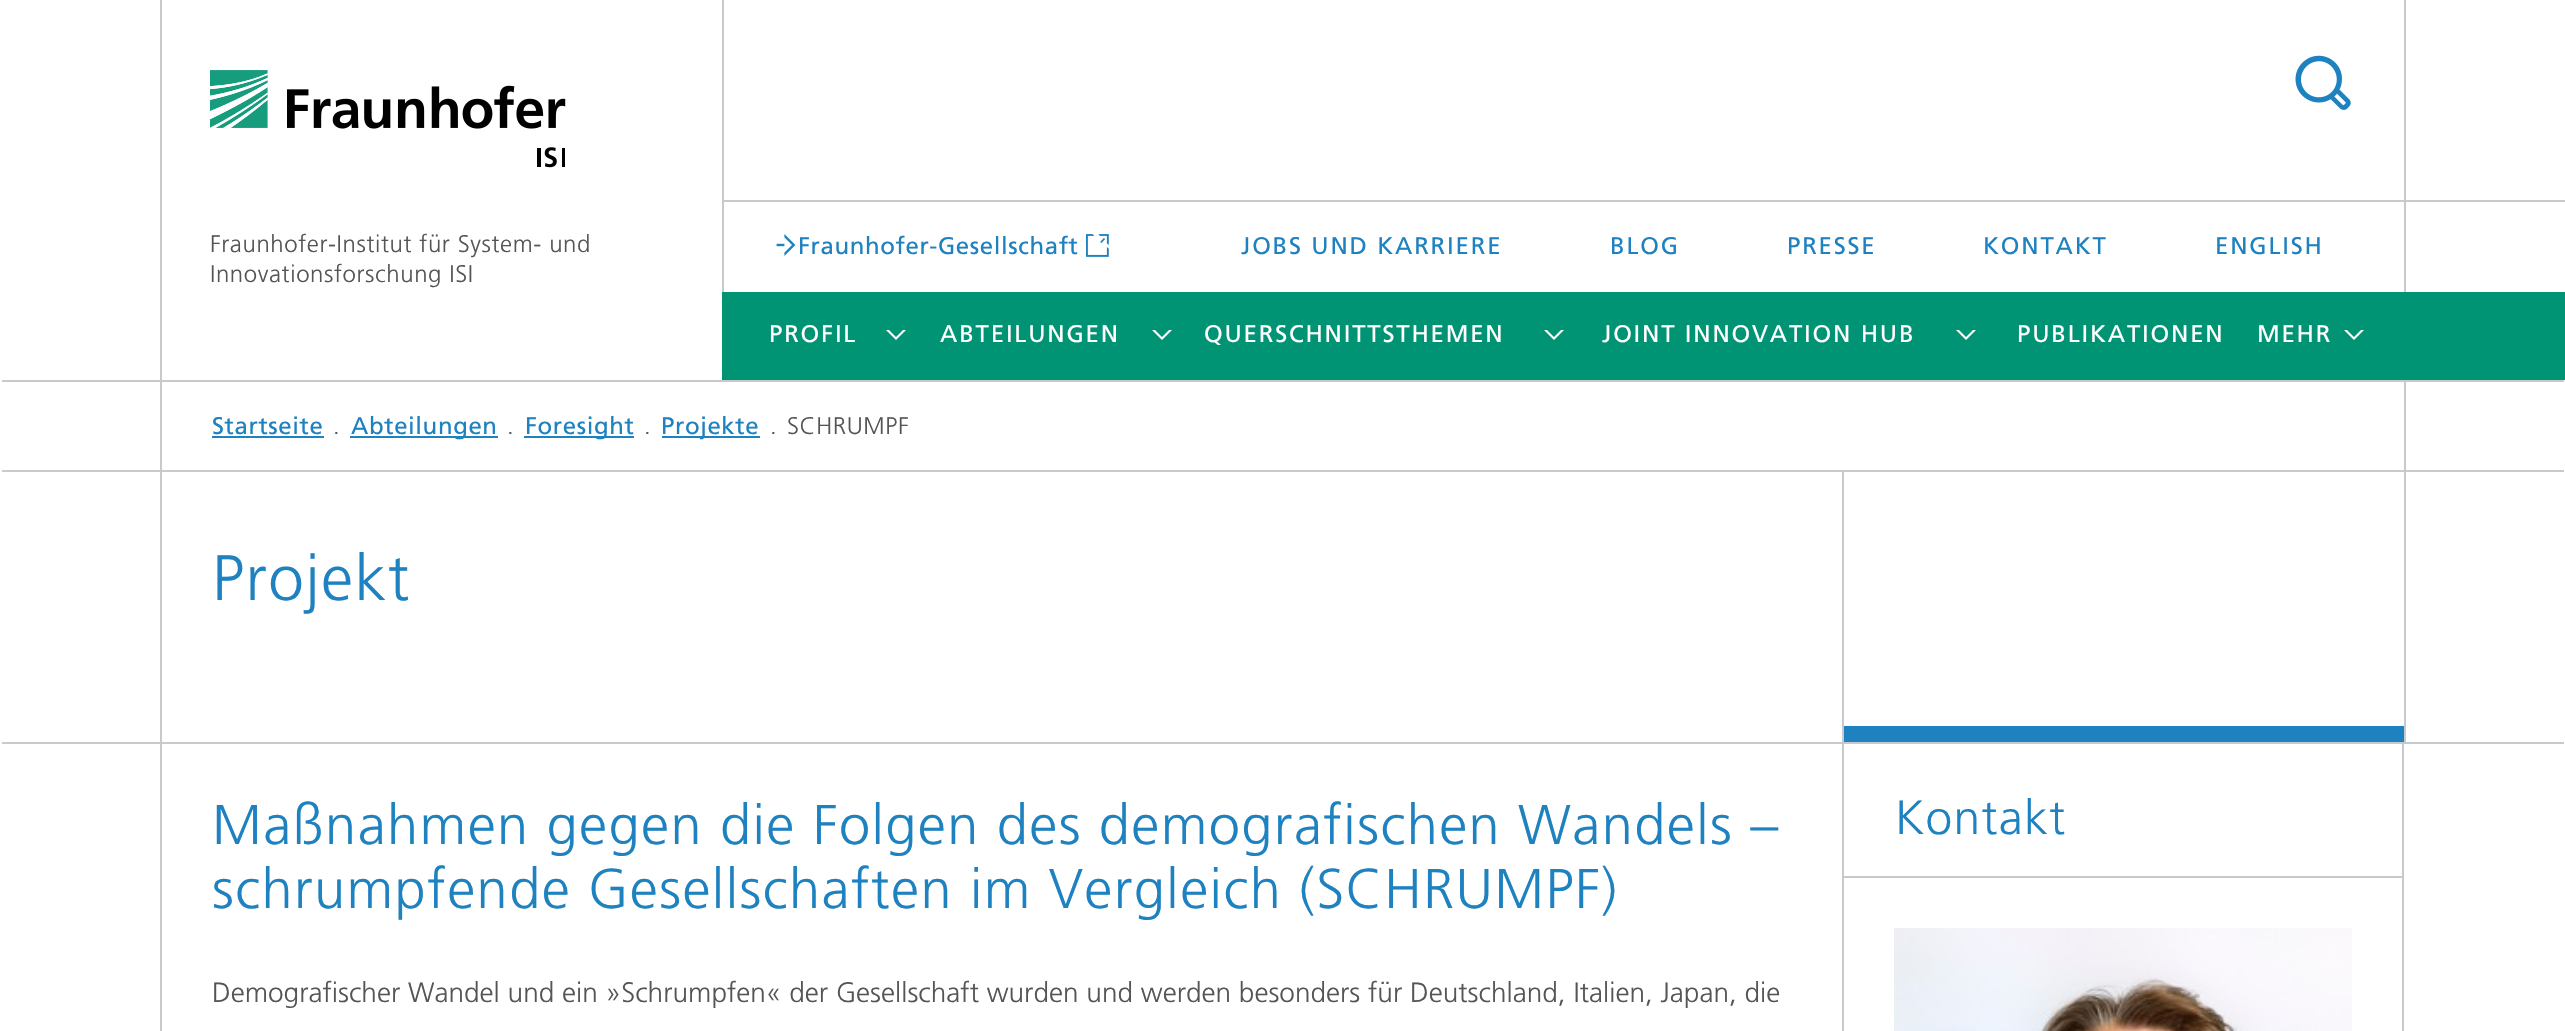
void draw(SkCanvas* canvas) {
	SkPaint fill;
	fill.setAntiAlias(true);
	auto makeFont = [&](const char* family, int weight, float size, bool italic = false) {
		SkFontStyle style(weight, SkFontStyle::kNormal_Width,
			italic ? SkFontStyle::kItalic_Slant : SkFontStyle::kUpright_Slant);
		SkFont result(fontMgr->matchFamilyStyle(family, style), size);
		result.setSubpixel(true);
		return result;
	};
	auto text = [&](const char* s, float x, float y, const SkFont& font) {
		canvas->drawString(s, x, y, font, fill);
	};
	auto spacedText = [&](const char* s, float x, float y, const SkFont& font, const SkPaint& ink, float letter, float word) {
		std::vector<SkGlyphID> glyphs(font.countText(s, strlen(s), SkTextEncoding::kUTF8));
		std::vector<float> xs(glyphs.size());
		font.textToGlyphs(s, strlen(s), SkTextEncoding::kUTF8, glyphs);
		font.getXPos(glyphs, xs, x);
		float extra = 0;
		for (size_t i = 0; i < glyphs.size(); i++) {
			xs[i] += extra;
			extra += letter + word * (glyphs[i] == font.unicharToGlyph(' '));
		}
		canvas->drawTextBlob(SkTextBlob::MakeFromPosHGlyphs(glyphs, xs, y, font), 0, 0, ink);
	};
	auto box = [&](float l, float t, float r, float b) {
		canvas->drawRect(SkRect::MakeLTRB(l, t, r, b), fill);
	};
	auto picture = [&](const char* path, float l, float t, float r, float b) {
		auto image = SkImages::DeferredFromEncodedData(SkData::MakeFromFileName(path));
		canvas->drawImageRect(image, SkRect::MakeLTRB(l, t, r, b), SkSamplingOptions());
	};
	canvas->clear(0xFFFFFFFF);
	picture("image0.png", 210, 70, 566, 168);
	picture("image1.png", 2295, 55, 2351, 110);
	fill.setColor(0xFFC7CACC);
	box(722, 200, 2565, 202);
	box(2404, 0, 2406, 292);
	box(722, 0, 724, 292);
	picture("image2.png", 776, 234, 796, 256);
	picture("image3.png", 1086, 234, 1109, 257);
	fill.setColor(0xFF009374);
	box(722, 292, 2565, 380);
	fill.setColor(0xFFFFFFFF);
	canvas->drawPath(SkPathBuilder().moveTo(903, 330).lineTo(896, 337).lineTo(889, 330).lineTo(886, 330).lineTo(896, 340).lineTo(906, 330).close().detach(), fill);
	canvas->drawPath(SkPathBuilder().moveTo(1169, 330).lineTo(1162, 337).lineTo(1155, 330).lineTo(1152, 330).lineTo(1162, 340).lineTo(1172, 330).close().detach(), fill);
	canvas->drawPath(SkPathBuilder().moveTo(1561, 330).lineTo(1554, 337).lineTo(1547, 330).lineTo(1544, 330).lineTo(1554, 340).lineTo(1564, 330).close().detach(), fill);
	canvas->drawPath(SkPathBuilder().moveTo(1973, 330).lineTo(1966, 337).lineTo(1959, 330).lineTo(1956, 330).lineTo(1966, 340).lineTo(1976, 330).close().detach(), fill);
	canvas->drawPath(SkPathBuilder().moveTo(2361, 330).lineTo(2354, 337).lineTo(2347, 330).lineTo(2344, 330).lineTo(2354, 340).lineTo(2364, 330).close().detach(), fill);
	fill.setColor(0xFFC7CACC);
	box(160, 0, 162, 1031);
	box(2, 380, 162, 382);
	box(160, 380, 2564, 382);
	box(2, 470, 162, 472);
	box(160, 470, 2564, 472);
	box(2404, 380, 2406, 742);
	fill.setColor(0xFF1F82C0);
	box(212, 436, 324, 438);
	box(350, 436, 498, 438);
	box(524, 436, 634, 438);
	box(662, 436, 760, 438);
	box(1844, 726, 2404, 742);
	fill.setColor(0xFFC7CACC);
	box(2, 742, 1844, 744);
	box(1844, 742, 2564, 744);
	box(1842, 472, 1844, 1031);
	box(2402, 742, 2404, 1031);
	box(1844, 876, 2402, 878);
	picture("image4.png", 1894, 928, 2352, 1031);
	auto font1 = makeFont("Frutiger", 300, 24);
	fill.setColor(0xFF555555);
	spacedText("Fraunhofer-Institut für System- und", 210, 252, font1, fill, 0.6f, 0);
	spacedText("Innovationsforschung ISI", 210, 282, font1, fill, 0.6f, 0);
	auto font2 = makeFont("Frutiger", 400, 24);
	fill.setColor(0xFF1F82C0);
	spacedText("Fraunhofer-Gesellschaft", 798, 254, font2, fill, 0.6f, 0);
	spacedText("JOBS UND KARRIERE", 1241, 254, font2, fill, 1.8f, 0);
	spacedText("BLOG", 1610, 254, font2, fill, 1.8f, 0);
	spacedText("PRESSE", 1787, 254, font2, fill, 1.8f, 0);
	spacedText("KONTAKT", 1983, 254, font2, fill, 1.8f, 0);
	spacedText("ENGLISH", 2215, 254, font2, fill, 1.8f, 0);
	fill.setColor(0xFFFFFFFF);
	spacedText("PROFIL", 769, 342, font2, fill, 1.8f, 0);
	spacedText("ABTEILUNGEN", 940, 342, font2, fill, 1.8f, 0);
	spacedText("QUERSCHNITTSTHEMEN", 1204, 342, font2, fill, 1.8f, 0);
	spacedText("JOINT INNOVATION HUB", 1602, 342, font2, fill, 1.8f, 0);
	spacedText("PUBLIKATIONEN", 2017, 342, font2, fill, 1.8f, 0);
	spacedText("MEHR", 2257, 342, font2, fill, 1.8f, 0);
	fill.setColor(0xFF1F82C0);
	spacedText("Startseite", 212, 434, font2, fill, 0.6f, 0);
	fill.setColor(0xFF555555);
	spacedText(".", 333, 434, font1, fill, 0.6f, 0);
	fill.setColor(0xFF1F82C0);
	spacedText("Abteilungen", 351, 434, font2, fill, 0.6f, 0);
	fill.setColor(0xFF555555);
	spacedText(".", 507, 434, font1, fill, 0.6f, 0);
	fill.setColor(0xFF1F82C0);
	spacedText("Foresight", 525, 434, font2, fill, 0.6f, 0);
	fill.setColor(0xFF555555);
	spacedText(".", 644, 434, font1, fill, 0.6f, 0);
	fill.setColor(0xFF1F82C0);
	spacedText("Projekte", 661, 434, font2, fill, 0.6f, 0);
	fill.setColor(0xFF555555);
	spacedText(".", 770, 434, font1, fill, 0.6f, 0);
	spacedText("SCHRUMPF", 787, 434, font1, fill, 0.6f, 0);
	auto font3 = makeFont("Frutiger", 300, 64);
	fill.setColor(0xFF1F82C0);
	spacedText("Projekt", 212, 600, font3, fill, 1.5f, 0);
	auto font4 = makeFont("Frutiger", 300, 56);
	spacedText("Maßnahmen gegen die Folgen des demografischen Wandels –", 212, 844, font4, fill, 1.4f, 0);
	spacedText("schrumpfende Gesellschaften im Vergleich (SCHRUMPF)", 212, 908, font4, fill, 1.4f, 0);
	auto font5 = makeFont("Frutiger", 300, 28);
	fill.setColor(0xFF555555);
	text("Demografischer Wandel und ein »Schrumpfen« der Gesellschaft wurden und werden besonders für Deutschland, Italien, Japan, die", 212, 1002, font5);
	auto font6 = makeFont("Frutiger", 300, 48);
	fill.setColor(0xFF1F82C0);
	spacedText("Kontakt", 1895, 834, font6, fill, 1.25f, 0);
}
